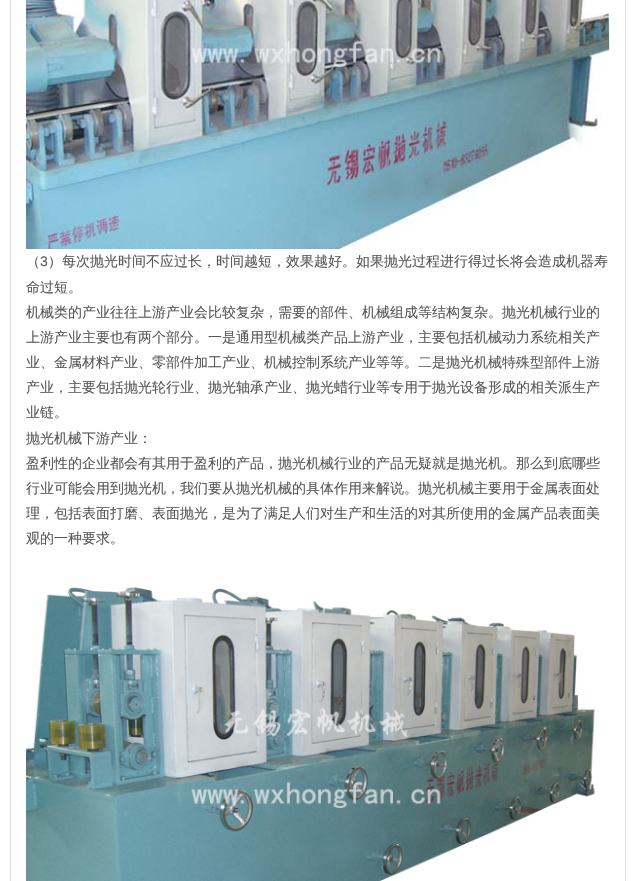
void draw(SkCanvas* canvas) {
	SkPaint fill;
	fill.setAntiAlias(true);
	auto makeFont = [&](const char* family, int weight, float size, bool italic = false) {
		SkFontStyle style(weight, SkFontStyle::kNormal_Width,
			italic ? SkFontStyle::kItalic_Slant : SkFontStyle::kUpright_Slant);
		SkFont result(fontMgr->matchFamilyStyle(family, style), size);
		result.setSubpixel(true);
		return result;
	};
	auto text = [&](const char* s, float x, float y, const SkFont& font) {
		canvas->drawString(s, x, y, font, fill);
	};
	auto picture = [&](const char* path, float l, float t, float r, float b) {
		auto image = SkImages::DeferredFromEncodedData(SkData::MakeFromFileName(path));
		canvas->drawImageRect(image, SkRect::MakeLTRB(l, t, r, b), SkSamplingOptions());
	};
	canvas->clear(0xFFFFFFFF);
	fill.setStyle(SkPaint::kStroke_Style);
	fill.setStrokeWidth(1);
	fill.setColor(0xFFDDDDDD);
	canvas->drawRect(SkRect::MakeLTRB(10.5f, -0.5f, 625.5f, 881.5f), fill);
	picture("image0.png", 26, 0, 610, 249);
	picture("image1.png", 26, 587, 595, 881);
	auto font1 = makeFont("WenQuanYi Zen Hei", 500, 14);
	fill.setStyle(SkPaint::kFill_Style);
	fill.setColor(0xFF595757);
	text("（", 26, 266, font1);
	auto font2 = makeFont("Liberation Sans", 400, 14);
	text("3", 40, 266, font2);
	text("）每次抛光时间不应过长，时间越短，效果越好。如果抛光过程进行得过长将会造成机器寿", 48, 266, font1);
	text("命过短。", 26, 292, font1);
	text("机械类的产业往往上游产业会比较复杂，需要的部件、机械组成等结构复杂。抛光机械行业的", 26, 317, font1);
	text("上游产业主要也有两个部分。一是通用型机械类产品上游产业，主要包括机械动力系统相关产", 26, 342, font1);
	text("业、金属材料产业、零部件加工产业、机械控制系统产业等等。二是抛光机械特殊型部件上游", 26, 367, font1);
	text("产业，主要包括抛光轮行业、抛光轴承产业、抛光蜡行业等专用于抛光设备形成的相关派生产", 26, 392, font1);
	text("业链。", 26, 417, font1);
	text("抛光机械下游产业：", 26, 443, font1);
	text("盈利性的企业都会有其用于盈利的产品，抛光机械行业的产品无疑就是抛光机。那么到底哪些", 26, 468, font1);
	text("行业可能会用到抛光机，我们要从抛光机械的具体作用来解说。抛光机械主要用于金属表面处", 26, 493, font1);
	text("理，包括表面打磨、表面抛光，是为了满足人们对生产和生活的对其所使用的金属产品表面美", 26, 518, font1);
	text("观的一种要求。", 26, 543, font1);
}
